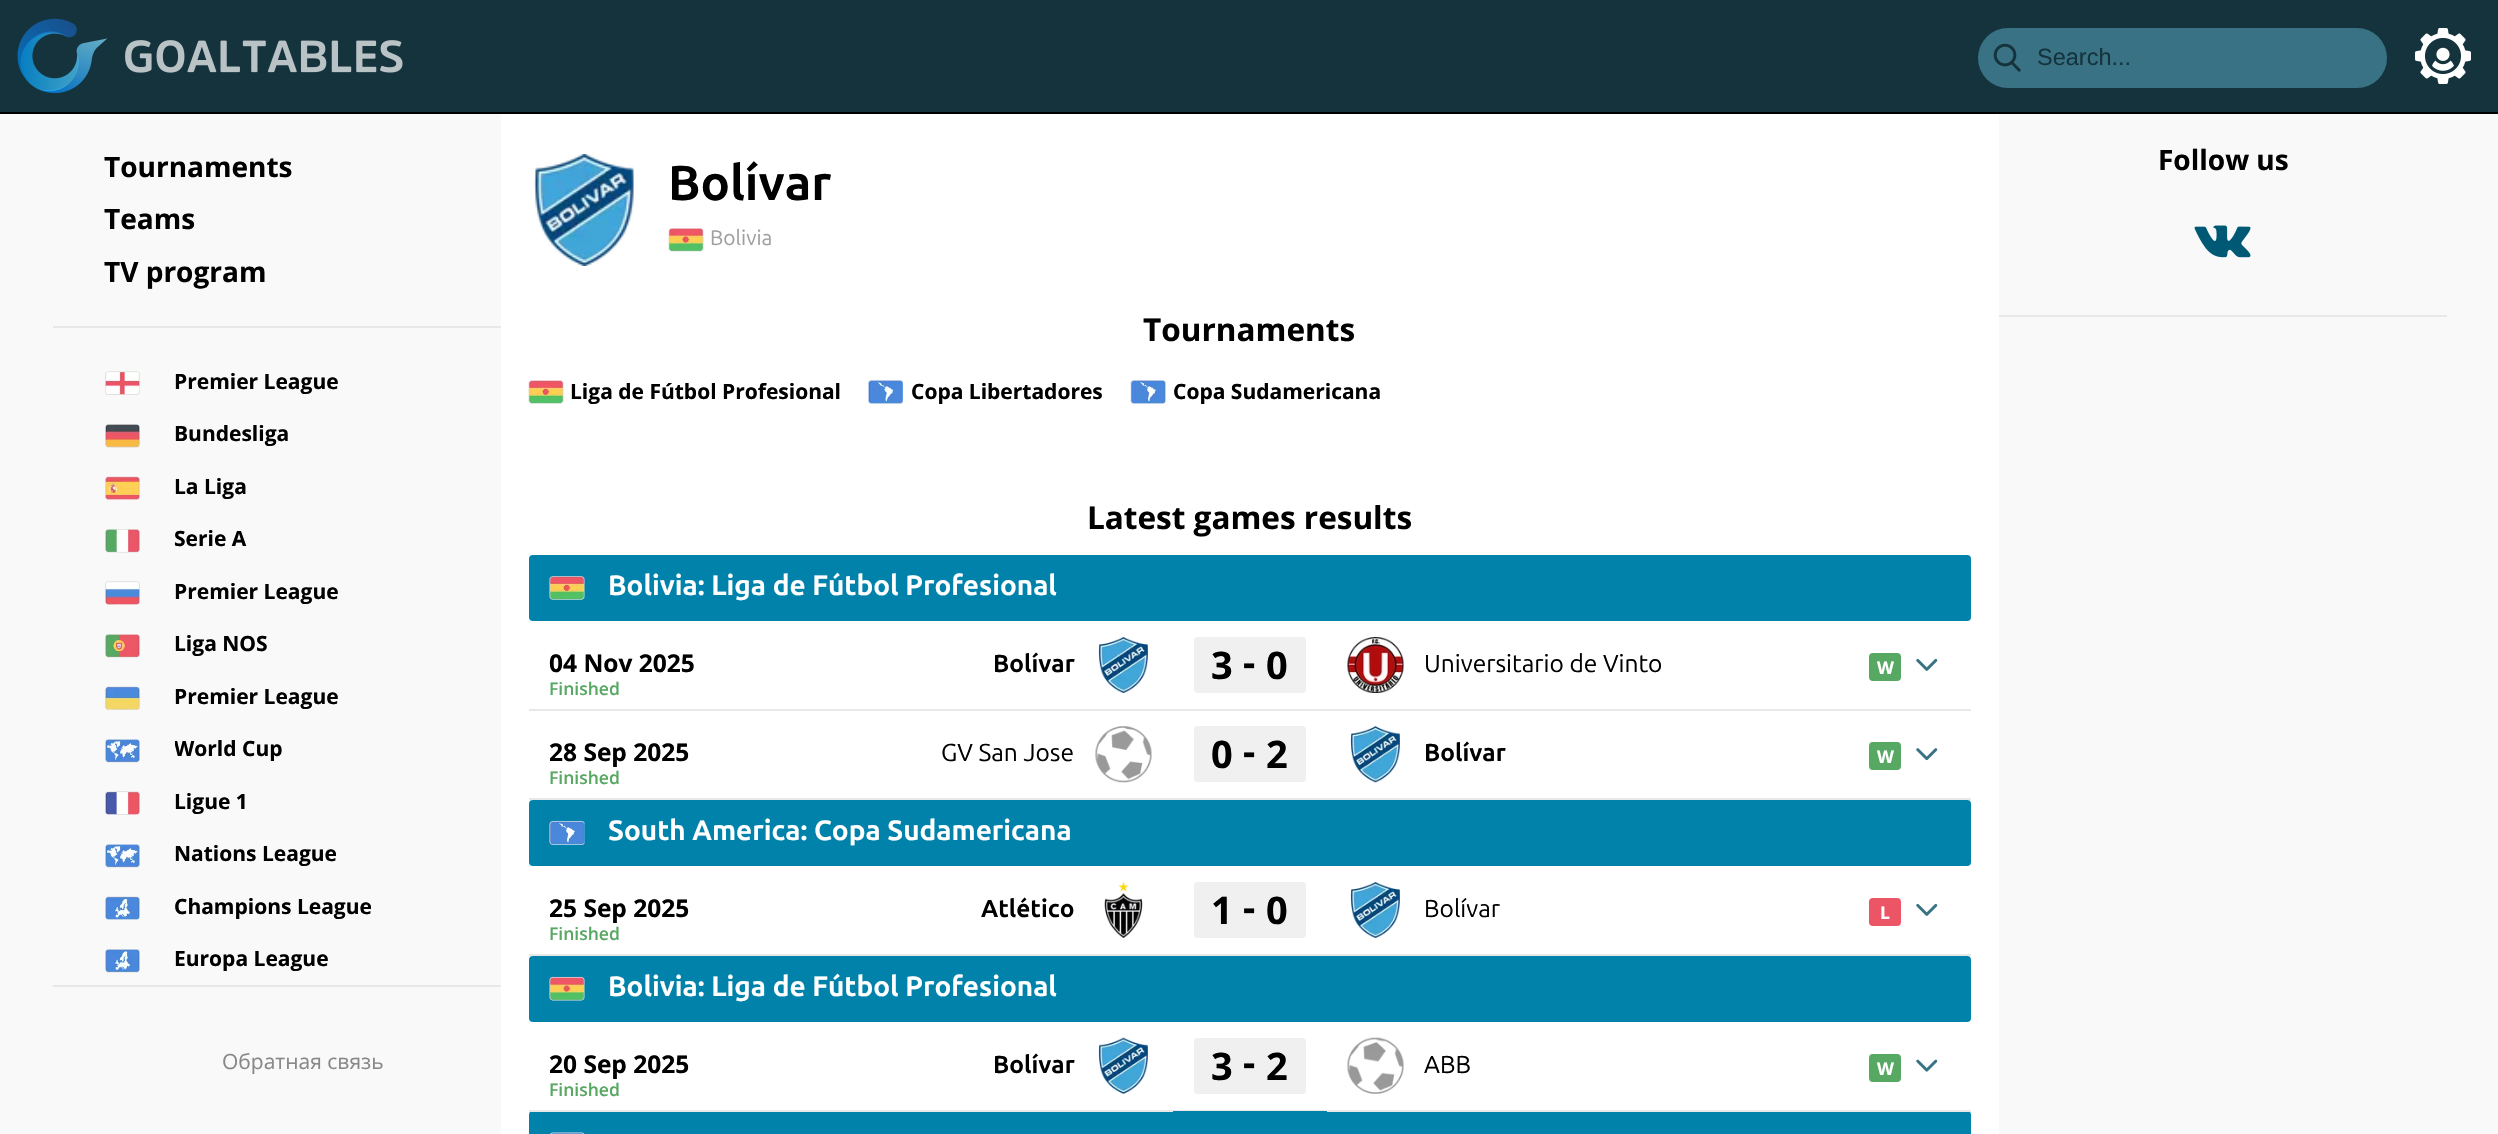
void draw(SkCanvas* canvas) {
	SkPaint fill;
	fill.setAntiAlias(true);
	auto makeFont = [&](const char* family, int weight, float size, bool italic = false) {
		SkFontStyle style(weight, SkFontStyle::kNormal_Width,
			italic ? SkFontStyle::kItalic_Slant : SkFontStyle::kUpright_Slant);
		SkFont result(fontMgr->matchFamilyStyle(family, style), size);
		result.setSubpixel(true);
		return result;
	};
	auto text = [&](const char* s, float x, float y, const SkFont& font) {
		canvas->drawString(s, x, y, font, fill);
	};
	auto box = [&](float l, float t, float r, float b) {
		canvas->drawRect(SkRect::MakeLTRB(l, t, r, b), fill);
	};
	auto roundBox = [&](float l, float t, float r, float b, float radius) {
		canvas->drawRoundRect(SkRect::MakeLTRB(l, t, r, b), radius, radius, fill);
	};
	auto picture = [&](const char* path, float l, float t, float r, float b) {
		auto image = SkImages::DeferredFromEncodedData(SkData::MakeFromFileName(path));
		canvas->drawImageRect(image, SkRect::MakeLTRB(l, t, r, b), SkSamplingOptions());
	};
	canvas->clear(0xFFFFFFFF);
	fill.setColor(0xFF15333C);
	box(0, 0, 2498, 112);
	fill.setColor(0xFF000000);
	box(0, 112, 2498, 114);
	picture("image0.png", 17, 18, 403, 94);
	fill.setColor(0xFF387284);
	roundBox(1978, 28, 2387, 88, 30);
	picture("image1.png", 1993, 43, 2021, 72);
	picture("image2.png", 2415, 28, 2471, 84);
	fill.setColor(0xFFF9F9F9);
	box(0, 114, 501, 1134);
	fill.setColor(0xFFE8E8E8);
	box(53, 326, 501, 328);
	picture("image3.png", 105, 371, 140, 395);
	picture("image4.png", 105, 424, 140, 448);
	picture("image5.png", 105, 476, 140, 500);
	picture("image6.png", 105, 529, 140, 553);
	picture("image7.png", 105, 581, 140, 605);
	picture("image8.png", 105, 634, 140, 658);
	picture("image9.png", 105, 686, 140, 710);
	picture("image10.png", 105, 739, 140, 763);
	picture("image11.png", 105, 791, 140, 815);
	picture("image10.png", 105, 844, 140, 868);
	picture("image12.png", 105, 896, 140, 920);
	picture("image13.png", 105, 949, 140, 973);
	box(53, 985, 501, 987);
	picture("image14.png", 534, 154, 634, 266);
	picture("image15.png", 668, 228, 704, 252);
	picture("image16.png", 528, 380, 564, 404);
	picture("image17.png", 868, 379, 903, 404);
	picture("image18.png", 1130, 379, 1166, 404);
	fill.setColor(0xFF0082AB);
	roundBox(529, 555, 1971, 621, 4);
	picture("image19.png", 549, 576, 585, 600);
	picture("image20.png", 1098, 637, 1148, 693);
	fill.setColor(0xFFE8E8E8);
	box(529, 709, 1971, 711);
	fill.setColor(0xFFF0F0F0);
	roundBox(1194, 637, 1306, 693, 4);
	picture("image21.png", 1347, 637, 1404, 693);
	fill.setColor(0xFF57A863);
	roundBox(1869, 653, 1901, 681, 4);
	picture("image22.png", 1916, 658, 1938, 671);
	picture("image23.png", 1095, 726, 1152, 783);
	fill.setColor(0xFFE8E8E8);
	box(529, 798, 1971, 800);
	fill.setColor(0xFFF0F0F0);
	roundBox(1194, 726, 1306, 782, 4);
	picture("image24.png", 1350, 726, 1400, 783);
	fill.setColor(0xFF57A863);
	roundBox(1869, 742, 1901, 770, 4);
	picture("image25.png", 1916, 748, 1938, 761);
	fill.setColor(0xFF0082AB);
	roundBox(529, 800, 1971, 866, 4);
	picture("image26.png", 549, 820, 585, 845);
	picture("image27.png", 1104, 882, 1143, 938);
	fill.setColor(0xFFE8E8E8);
	box(529, 954, 1971, 956);
	fill.setColor(0xFFF0F0F0);
	roundBox(1194, 882, 1306, 938, 4);
	picture("image28.png", 1350, 882, 1400, 938);
	fill.setColor(0xFFEC5565);
	roundBox(1869, 898, 1901, 926, 4);
	picture("image22.png", 1916, 903, 1938, 916);
	fill.setColor(0xFF0082AB);
	roundBox(529, 956, 1971, 1022, 4);
	picture("image29.png", 549, 976, 585, 1001);
	roundBox(529, 1111, 1971, 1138, 4);
	fill.setColor(0xFFE8E8E8);
	box(529, 1110, 1173, 1112);
	picture("image30.png", 1098, 1037, 1148, 1094);
	box(1173, 1110, 1327, 1111);
	fill.setColor(0xFFF0F0F0);
	roundBox(1194, 1038, 1306, 1094, 4);
	fill.setColor(0xFFE8E8E8);
	box(1327, 1110, 1971, 1112);
	picture("image31.png", 1347, 1037, 1404, 1094);
	fill.setColor(0xFF57A863);
	roundBox(1869, 1054, 1901, 1082, 4);
	picture("image32.png", 1916, 1059, 1938, 1072);
	picture("image33.png", 550, 1132, 585, 1134);
	fill.setColor(0xFFF9F9F9);
	box(1999, 114, 2498, 1134);
	fill.setColor(0xFFE8E8E8);
	box(1999, 315, 2447, 317);
	picture("image34.png", 2194, 225, 2251, 258);
	auto font1 = makeFont("Liberation Sans", 400, 23.5f);
	fill.setColor(0xFF15333C);
	text("Search...", 2037, 65, font1);
	auto font2 = makeFont("Open Sans", 700, 28);
	fill.setColor(0xFF000000);
	text("Tournaments", 104, 177, font2);
	text("Teams", 104, 229, font2);
	text("TV program", 104, 282, font2);
	auto font3 = makeFont("Open Sans", 700, 21);
	text("Premier League", 174, 389, font3);
	text("Bundesliga", 174, 441, font3);
	text("La Liga", 174, 494, font3);
	text("Serie A", 174, 546, font3);
	text("Premier League", 174, 599, font3);
	text("Liga NOS", 174, 651, font3);
	text("Premier League", 174, 704, font3);
	canvas->save();
	canvas->clipRect(SkRect::MakeLTRB(175, 723, 413, 775));
	text("World Cup", 174, 756, font3);
	canvas->restore();
	text("Ligue 1", 174, 809, font3);
	text("Nations League", 174, 861, font3);
	text("Champions League", 174, 914, font3);
	text("Europa League", 174, 966, font3);
	auto font4 = makeFont("Open Sans", 400, 21);
	fill.setColor(0xFF888888);
	text("Обратная связь", 222, 1069, font4);
	auto font5 = makeFont("Ubuntu", 700, 49);
	fill.setColor(0xFF000000);
	text("Bolívar", 668, 200, font5);
	auto font6 = makeFont("Ubuntu", 400, 21);
	fill.setColor(0xFFA0A0A0);
	text("Bolivia", 710, 245, font6);
	auto font7 = makeFont("Open Sans", 700, 31.5f);
	fill.setColor(0xFF000000);
	text("Tournaments", 1143, 341, font7);
	text("Liga de Fútbol Profesional", 570, 399, font3);
	text("Copa Libertadores", 911, 399, font3);
	text("Copa Sudamericana", 1173, 399, font3);
	text("Latest games results", 1087, 529, font7);
	auto font8 = makeFont("Ubuntu", 700, 28);
	fill.setColor(0xFFFFFFFF);
	text("Bolivia: Liga de Fútbol Profesional", 608, 595, font8);
	auto font9 = makeFont("Open Sans", 700, 24.5f);
	fill.setColor(0xFF000000);
	text("04 Nov 2025", 549, 672, font9);
	auto font10 = makeFont("Open Sans", 600, 17.5f);
	fill.setColor(0xFF57A863);
	text("Finished", 549, 695, font10);
	auto font11 = makeFont("Ubuntu", 700, 24.5f);
	fill.setColor(0xFF000000);
	text("Bolívar", 993, 672, font11);
	auto font12 = makeFont("Open Sans", 700, 38);
	text("3", 1211, 679, font12);
	text("-", 1243, 676, font12);
	text("0", 1266, 679, font12);
	auto font13 = makeFont("Ubuntu", 400, 24.5f);
	text("Universitario de Vinto", 1424, 672, font13);
	auto font14 = makeFont("Open Sans", 700, 17.5f);
	fill.setColor(0xFFFFFFFF);
	text("W", 1877, 674, font14);
	fill.setColor(0xFF000000);
	text("28 Sep 2025", 549, 761, font9);
	fill.setColor(0xFF57A863);
	text("Finished", 549, 784, font10);
	fill.setColor(0xFF000000);
	text("GV San Jose", 941, 761, font13);
	text("0", 1211, 768, font12);
	text("-", 1243, 765, font12);
	text("2", 1266, 768, font12);
	text("Bolívar", 1424, 761, font11);
	fill.setColor(0xFFFFFFFF);
	text("W", 1877, 763, font14);
	text("South America: Copa Sudamericana", 608, 840, font8);
	fill.setColor(0xFF000000);
	text("25 Sep 2025", 549, 917, font9);
	fill.setColor(0xFF57A863);
	text("Finished", 549, 940, font10);
	fill.setColor(0xFF000000);
	text("Atlético", 981, 917, font11);
	text("1", 1211, 924, font12);
	text("-", 1243, 921, font12);
	text("0", 1266, 924, font12);
	text("Bolívar", 1424, 917, font13);
	fill.setColor(0xFFFFFFFF);
	text("L", 1880, 919, font14);
	text("Bolivia: Liga de Fútbol Profesional", 608, 996, font8);
	fill.setColor(0xFF000000);
	text("20 Sep 2025", 549, 1073, font9);
	fill.setColor(0xFF57A863);
	text("Finished", 549, 1096, font10);
	fill.setColor(0xFF000000);
	text("Bolívar", 993, 1073, font11);
	text("3", 1211, 1080, font12);
	text("-", 1243, 1076, font12);
	text("2", 1266, 1080, font12);
	text("ABB", 1424, 1073, font13);
	fill.setColor(0xFFFFFFFF);
	text("W", 1877, 1075, font14);
	fill.setColor(0xFF000000);
	text("Follow us", 2158, 170, font2);
}
